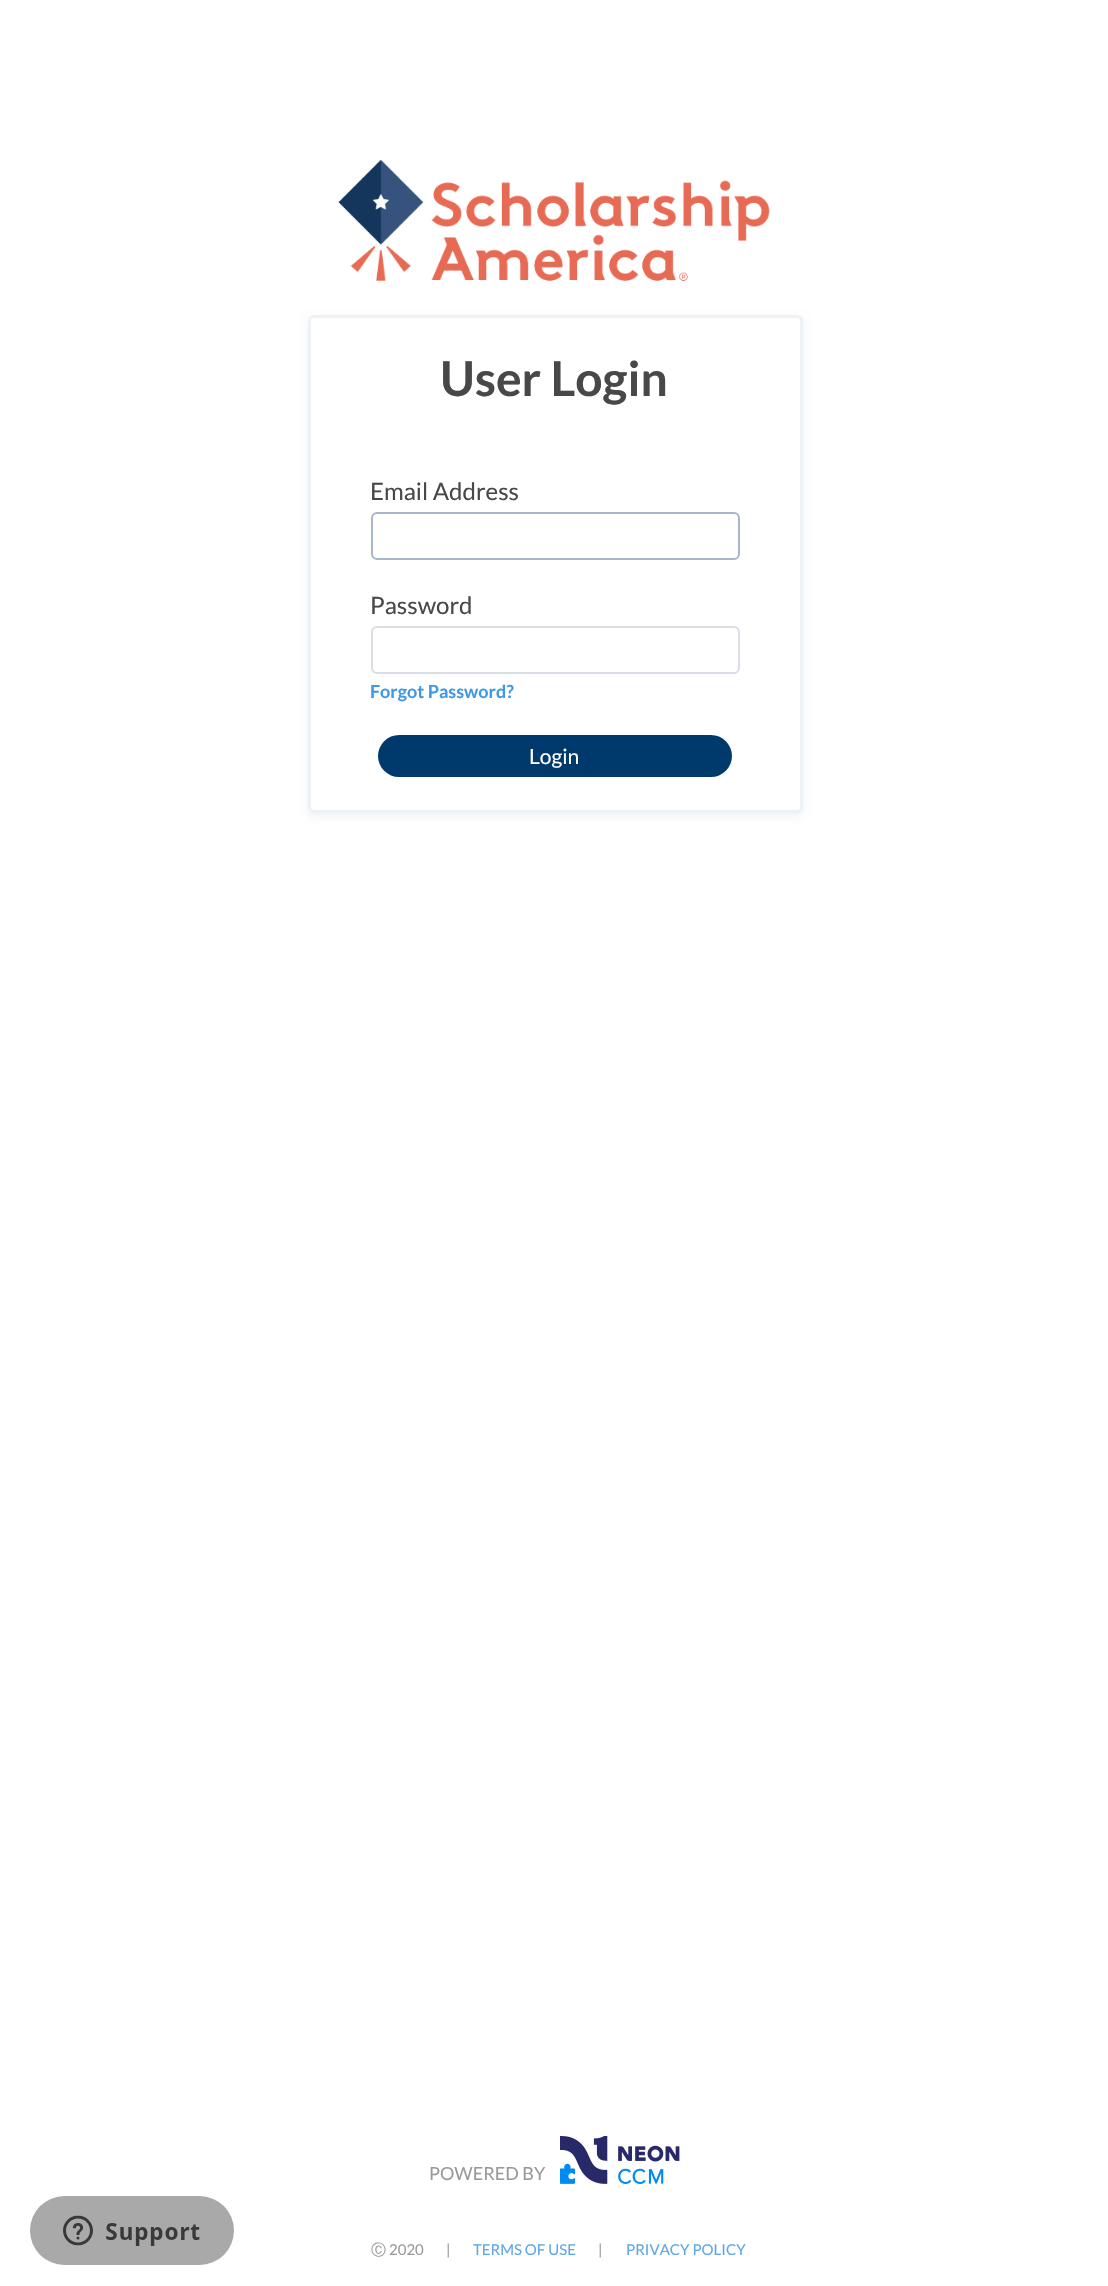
void draw(SkCanvas* canvas) {
	SkPaint fill;
	fill.setAntiAlias(true);
	auto makeFont = [&](const char* family, int weight, float size, bool italic = false) {
		SkFontStyle style(weight, SkFontStyle::kNormal_Width,
			italic ? SkFontStyle::kItalic_Slant : SkFontStyle::kUpright_Slant);
		SkFont result(fontMgr->matchFamilyStyle(family, style), size);
		result.setSubpixel(true);
		return result;
	};
	auto text = [&](const char* s, float x, float y, const SkFont& font) {
		canvas->drawString(s, x, y, font, fill);
	};
	auto roundBox = [&](float l, float t, float r, float b, float radius) {
		canvas->drawRoundRect(SkRect::MakeLTRB(l, t, r, b), radius, radius, fill);
	};
	auto picture = [&](const char* path, float l, float t, float r, float b) {
		auto image = SkImages::DeferredFromEncodedData(SkData::MakeFromFileName(path));
		canvas->drawImageRect(image, SkRect::MakeLTRB(l, t, r, b), SkSamplingOptions());
	};
	canvas->clear(0xFFFFFFFF);
	picture("image0.png", 30, 2196, 234, 2265);
	picture("image1.png", 338, 160, 770, 281);
	fill.setColor(0xFFEEF1F6);
	fill.setMaskFilter(SkMaskFilter::MakeBlur(kNormal_SkBlurStyle, 4));
	canvas->drawRoundRect(SkRect::MakeLTRB(308, 318, 803, 816), 6, 6, fill);
	fill.setMaskFilter(nullptr);
	fill.setColor(0xFFFFFFFF);
	canvas->drawRoundRect(SkRect::MakeLTRB(309.5f, 316.5f, 801.5f, 811.5f), 4.5f, 4.5f, fill);
	fill.setStyle(SkPaint::kStroke_Style);
	fill.setStrokeWidth(3);
	fill.setColor(0xFFEEF1F6);
	canvas->drawRoundRect(SkRect::MakeLTRB(309.5f, 316.5f, 801.5f, 811.5f), 4.5f, 4.5f, fill);
	fill.setStrokeWidth(2);
	fill.setColor(0xFFA8B7C7);
	canvas->drawRoundRect(SkRect::MakeLTRB(372, 513, 739, 559), 5, 5, fill);
	fill.setColor(0xFFD8DDE6);
	canvas->drawRoundRect(SkRect::MakeLTRB(372, 627, 739, 673), 5, 5, fill);
	fill.setStyle(SkPaint::kFill_Style);
	fill.setColor(0xFF003A6C);
	roundBox(378, 735, 732, 777, 21);
	picture("image2.png", 560, 2136, 680, 2184);
	auto font1 = makeFont("Lato", 700, 48);
	fill.setColor(0xFF484848);
	text("User Login", 440, 396, font1);
	auto font2 = makeFont("Lato", 400, 24);
	text("Email Address", 370, 500, font2);
	text("Password", 370, 614, font2);
	auto font3 = makeFont("Lato", 700, 18);
	fill.setColor(0xFF4097E3);
	text("Forgot Password?", 370, 698, font3);
	auto font4 = makeFont("Lato", 400, 21);
	fill.setColor(0xFFFFFFFF);
	text("Login", 529, 764, font4);
	auto font5 = makeFont("Lato", 400, 18);
	fill.setColor(0xFF999999);
	text("POWERED BY", 429, 2180, font5);
	auto font6 = makeFont("WenQuanYi Zen Hei", 500, 15);
	text("Ⓒ", 371, 2255, font6);
	auto font7 = makeFont("Lato", 400, 15);
	text("2020", 389, 2255, font7);
	text("|", 446, 2255, font7);
	fill.setColor(0xFF5EA7E7);
	text("TERMS OF USE", 473, 2255, font7);
	fill.setColor(0xFF999999);
	text("|", 598, 2255, font7);
	fill.setColor(0xFF5EA7E7);
	text("PRIVACY POLICY", 626, 2255, font7);
}
